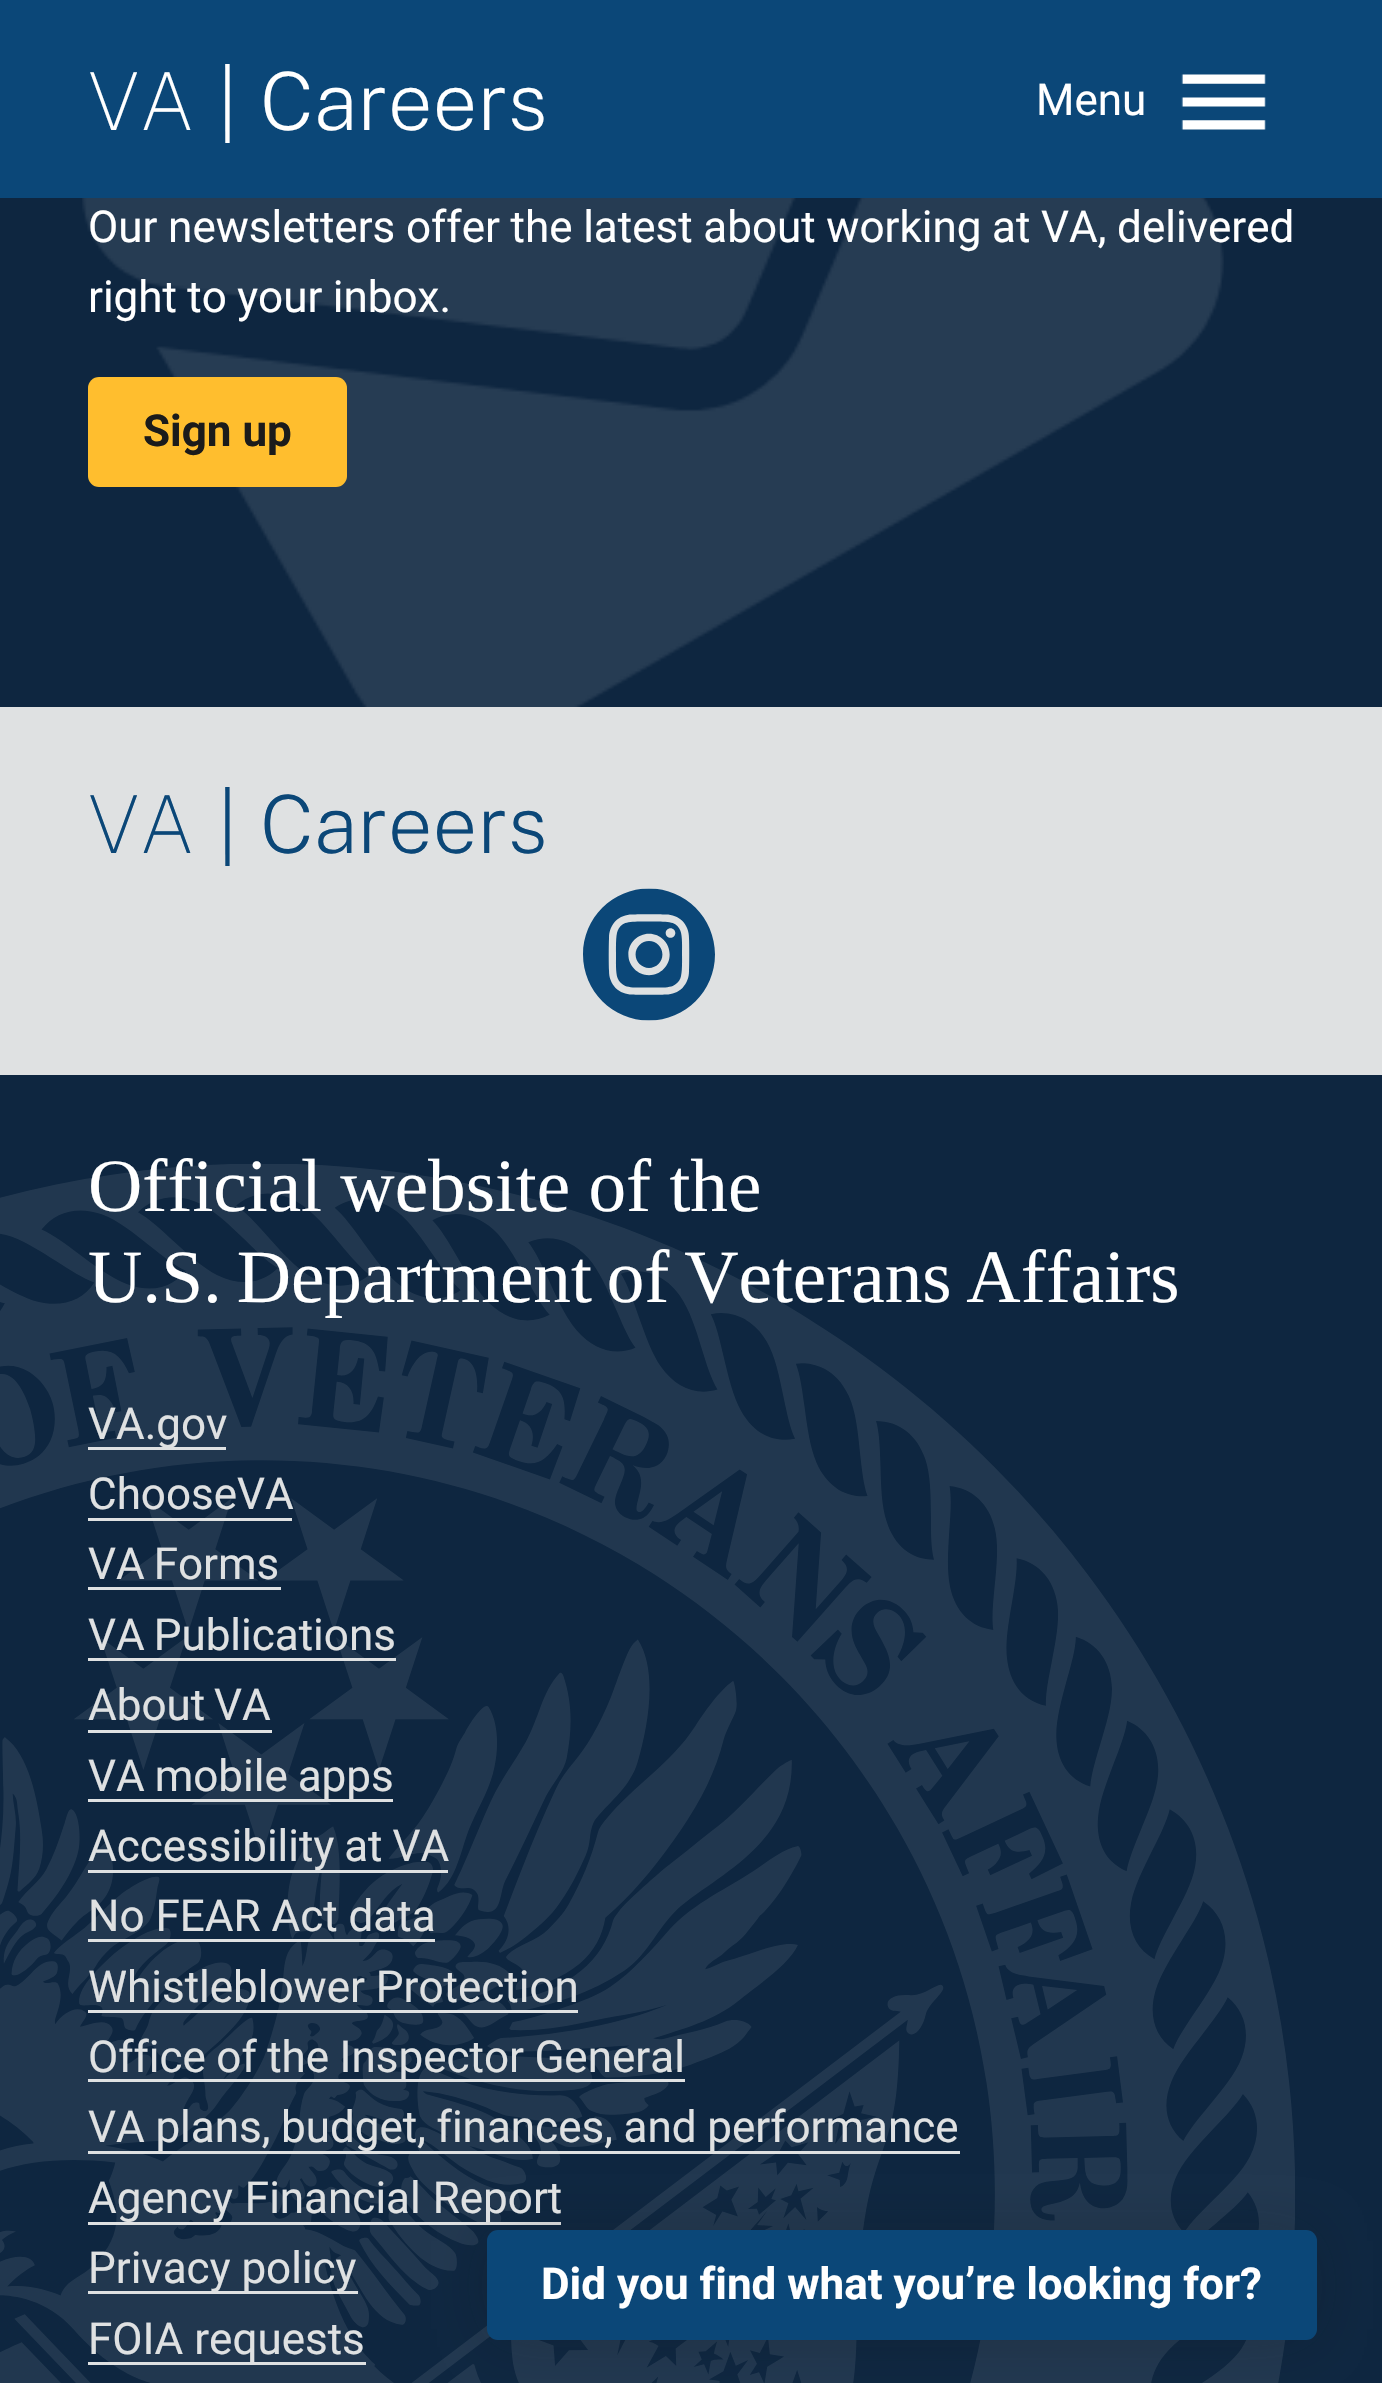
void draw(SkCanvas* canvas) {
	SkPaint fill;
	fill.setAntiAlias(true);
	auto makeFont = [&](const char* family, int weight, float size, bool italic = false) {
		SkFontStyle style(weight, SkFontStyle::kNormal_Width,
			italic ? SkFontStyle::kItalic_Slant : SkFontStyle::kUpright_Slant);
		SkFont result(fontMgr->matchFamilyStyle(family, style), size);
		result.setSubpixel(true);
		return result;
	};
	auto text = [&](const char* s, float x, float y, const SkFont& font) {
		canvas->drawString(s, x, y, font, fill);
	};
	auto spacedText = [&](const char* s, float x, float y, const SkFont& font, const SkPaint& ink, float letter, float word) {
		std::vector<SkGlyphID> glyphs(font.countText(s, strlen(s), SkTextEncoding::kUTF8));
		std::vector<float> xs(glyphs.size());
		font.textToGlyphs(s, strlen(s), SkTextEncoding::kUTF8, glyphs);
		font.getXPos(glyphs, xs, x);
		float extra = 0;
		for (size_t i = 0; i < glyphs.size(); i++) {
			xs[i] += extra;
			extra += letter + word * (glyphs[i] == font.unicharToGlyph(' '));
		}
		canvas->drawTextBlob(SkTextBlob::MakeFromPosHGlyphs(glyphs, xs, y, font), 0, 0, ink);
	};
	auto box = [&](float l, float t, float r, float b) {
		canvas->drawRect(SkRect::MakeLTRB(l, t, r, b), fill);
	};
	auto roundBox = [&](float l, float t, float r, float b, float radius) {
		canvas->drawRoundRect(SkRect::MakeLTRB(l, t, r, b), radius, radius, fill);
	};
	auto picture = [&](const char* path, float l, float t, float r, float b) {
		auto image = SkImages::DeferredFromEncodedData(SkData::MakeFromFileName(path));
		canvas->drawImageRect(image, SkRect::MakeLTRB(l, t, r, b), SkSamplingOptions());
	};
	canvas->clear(0xFFDFE1E2);
	fill.setColor(0xFF0B4778);
	box(0, 0, 1382, 198);
	picture("image0.png", 1181, 74, 1266, 130);
	fill.setColor(0xFF0E2640);
	box(0, 198, 1382, 707);
	picture("image1.png", 82, 198, 1224, 707);
	fill.setColor(0xFFFFBE2E);
	roundBox(88, 377, 347, 487, 11);
	picture("image2.png", 583, 888, 715, 1021);
	fill.setColor(0xFF0E2640);
	box(0, 1075, 1382, 2383);
	picture("image3.png", 0, 1164, 1295, 2383);
	fill.setColor(0xFFDFE1E2);
	box(88, 1447, 226, 1450);
	box(88, 1518, 292, 1521);
	box(88, 1587, 281, 1590);
	box(88, 1658, 396, 1661);
	box(88, 1730, 272, 1733);
	box(88, 1799, 393, 1802);
	box(88, 1870, 448, 1873);
	box(88, 1939, 435, 1942);
	box(88, 2010, 578, 2013);
	box(88, 2079, 685, 2082);
	box(88, 2151, 960, 2154);
	box(88, 2222, 561, 2225);
	box(88, 2291, 358, 2294);
	box(88, 2362, 366, 2365);
	fill.setColor(0x4D1B1B1B);
	fill.setMaskFilter(SkMaskFilter::MakeBlur(kNormal_SkBlurStyle, 27.5f));
	canvas->drawRect(SkRect::MakeLTRB(498, 2241, 1306, 2329), fill);
	fill.setMaskFilter(nullptr);
	fill.setColor(0xFF0B4778);
	roundBox(487, 2230, 1317, 2340, 11);
	auto font1 = makeFont("Public Sans", 100, 80);
	fill.setColor(0xFFFFFFFF);
	text("VA", 88, 130, font1);
	auto font2 = makeFont("Public Sans", 200, 80);
	text("|", 217, 130, font2);
	text("Careers", 260, 130, font2);
	auto font3 = makeFont("Roboto", 400, 44);
	text("Menu", 1036, 115, font3);
	spacedText("Our newsletters offer the latest about working at VA, delivered", 88, 242, font3, fill, 0, -0.25f);
	spacedText("right to your inbox.", 88, 312, font3, fill, 0, -0.5f);
	auto font4 = makeFont("Roboto", 700, 44);
	fill.setColor(0xFF1B1B1B);
	text("Sign up", 143, 446, font4);
	fill.setColor(0xFF0B4778);
	text("VA", 88, 853, font1);
	text("|", 217, 853, font2);
	text("Careers", 260, 853, font2);
	auto font5 = makeFont("Liberation Serif", 400, 75.25f);
	fill.setColor(0xFFFFFFFF);
	spacedText("Official website of the", 88, 1211, font5, fill, 0, -0.5f);
	spacedText("U.S. Department of Veterans Affairs", 88, 1302, font5, fill, 0, -4);
	fill.setColor(0xFFDFE1E2);
	text("VA.gov", 88, 1439, font3);
	text("ChooseVA", 88, 1509, font3);
	spacedText("VA Forms", 88, 1579, font3, fill, 0, -2);
	spacedText("VA Publications", 88, 1650, font3, fill, 0, -2);
	spacedText("About VA", 88, 1720, font3, fill, 0, -2);
	spacedText("VA mobile apps", 88, 1791, font3, fill, 0, -1);
	spacedText("Accessibility at VA", 88, 1861, font3, fill, 0, -1);
	text("No FEAR Act data", 88, 1931, font3);
	text("Whistleblower Protection", 88, 2002, font3);
	spacedText("Office of the Inspector General", 88, 2072, font3, fill, 0, -0.5f);
	spacedText("VA plans, budget, finances, and performance", 88, 2142, font3, fill, 0, -0.25f);
	spacedText("Agency Financial Report", 88, 2213, font3, fill, 0, 1);
	text("Privacy policy", 88, 2283, font3);
	text("FOIA requests", 88, 2354, font3);
	fill.setColor(0xFFFFFFFF);
	text("Did you find what you’re looking for?", 541, 2299, font4);
}
